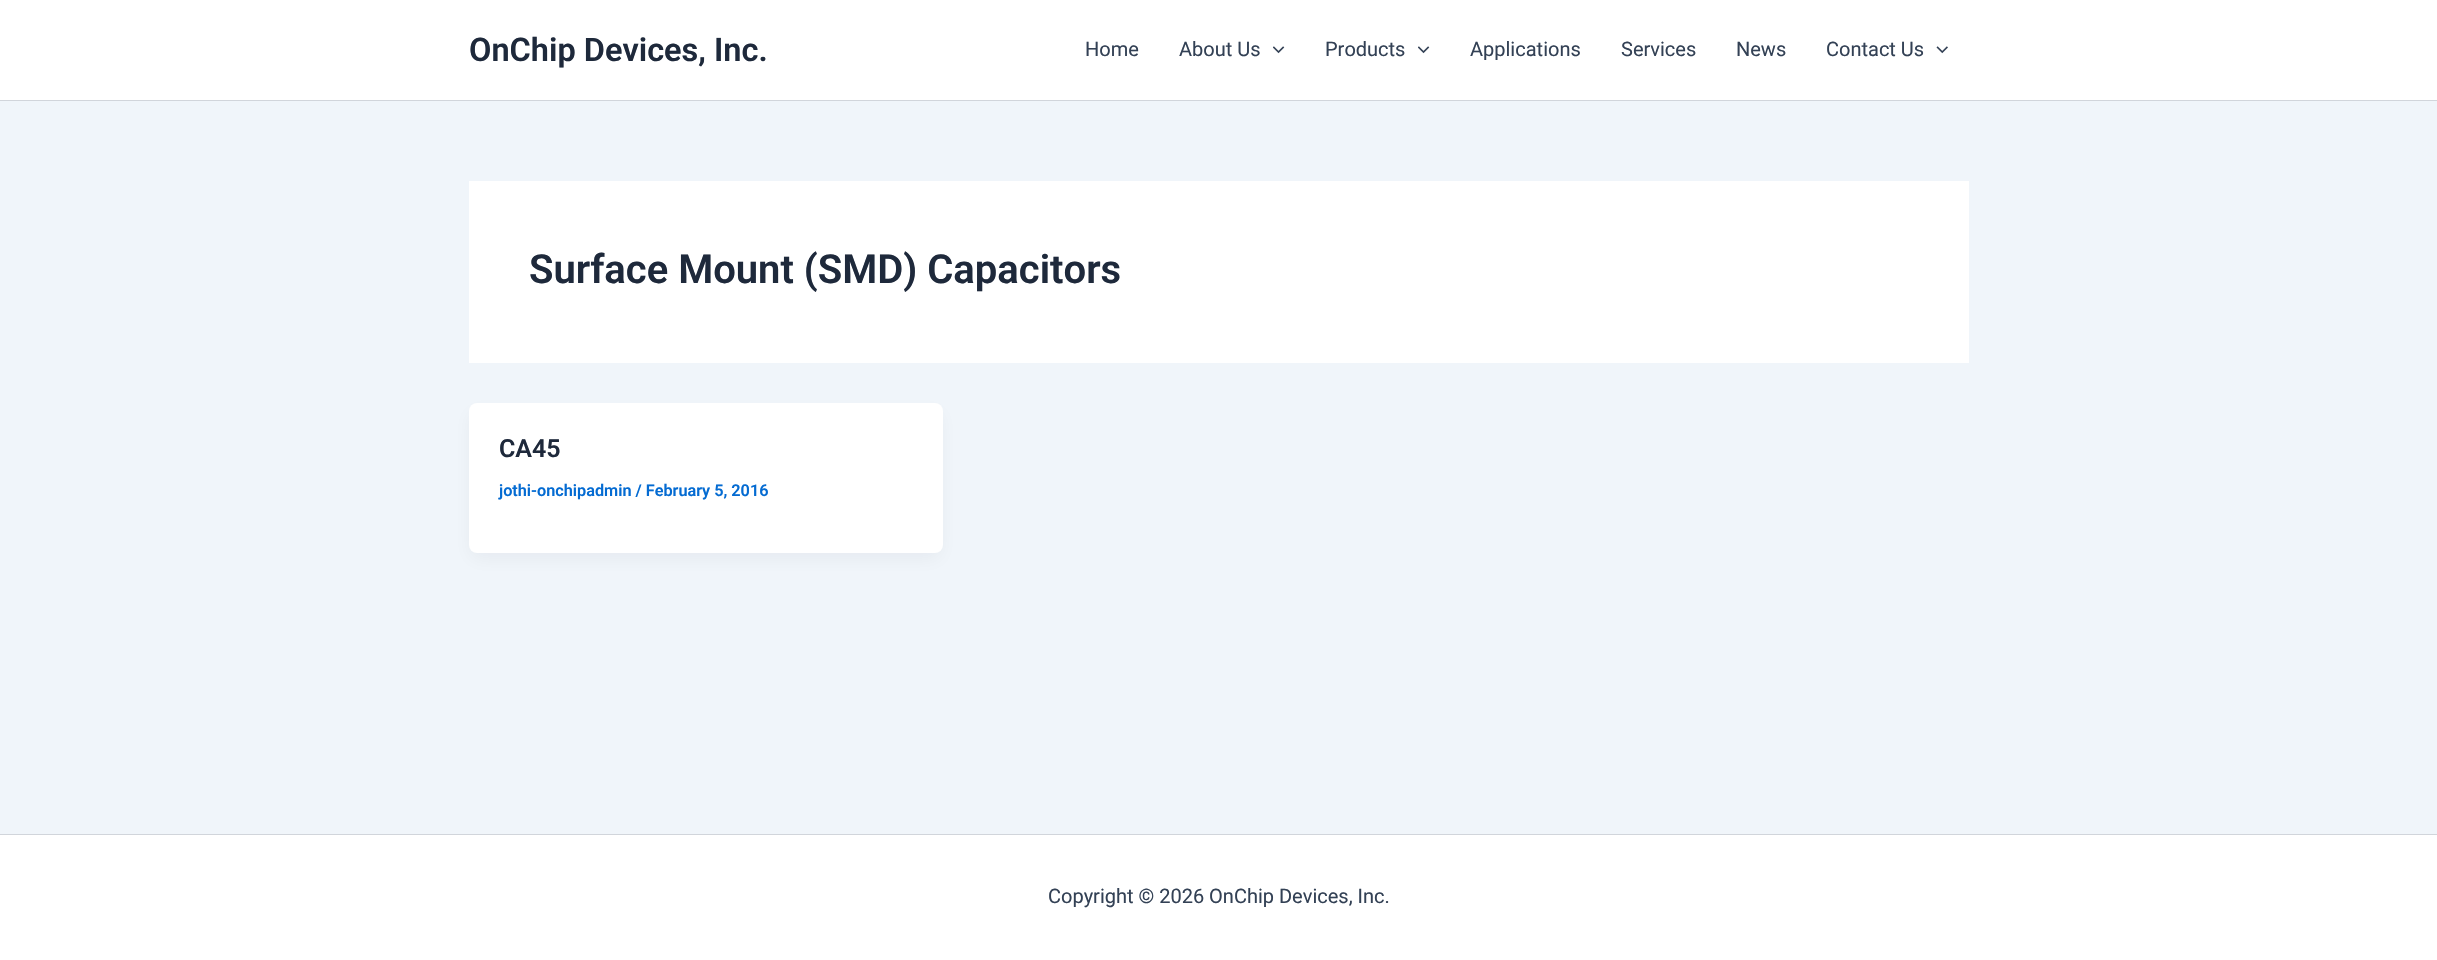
void draw(SkCanvas* canvas) {
	SkPaint fill;
	fill.setAntiAlias(true);
	auto makeFont = [&](const char* family, int weight, float size, bool italic = false) {
		SkFontStyle style(weight, SkFontStyle::kNormal_Width,
			italic ? SkFontStyle::kItalic_Slant : SkFontStyle::kUpright_Slant);
		SkFont result(fontMgr->matchFamilyStyle(family, style), size);
		result.setSubpixel(true);
		return result;
	};
	auto text = [&](const char* s, float x, float y, const SkFont& font) {
		canvas->drawString(s, x, y, font, fill);
	};
	auto box = [&](float l, float t, float r, float b) {
		canvas->drawRect(SkRect::MakeLTRB(l, t, r, b), fill);
	};
	auto roundBox = [&](float l, float t, float r, float b, float radius) {
		canvas->drawRoundRect(SkRect::MakeLTRB(l, t, r, b), radius, radius, fill);
	};
	auto picture = [&](const char* path, float l, float t, float r, float b) {
		auto image = SkImages::DeferredFromEncodedData(SkData::MakeFromFileName(path));
		canvas->drawImageRect(image, SkRect::MakeLTRB(l, t, r, b), SkSamplingOptions());
	};
	canvas->clear(0xFFF0F5FA);
	fill.setColor(0xFFFFFFFF);
	box(0, 0, 2437, 100);
	fill.setColor(0xFFD1D5DB);
	box(0, 100, 2437, 101);
	picture("image0.png", 1273, 46, 1285, 54);
	picture("image0.png", 1418, 46, 1430, 54);
	picture("image1.png", 1936, 46, 1948, 54);
	fill.setColor(0xFFFFFFFF);
	box(469, 181, 1969, 363);
	fill.setColor(0x0D101828);
	fill.setMaskFilter(SkMaskFilter::MakeBlur(kNormal_SkBlurStyle, 9.5f));
	canvas->drawRoundRect(SkRect::MakeLTRB(471, 413, 940, 558), 5, 5, fill);
	fill.setMaskFilter(nullptr);
	fill.setColor(0xFFFFFFFF);
	roundBox(469, 403, 943, 553, 8);
	box(0, 835, 2437, 960);
	fill.setColor(0xFFD1D5DB);
	box(0, 834, 2437, 835);
	auto font1 = makeFont("Roboto", 600, 32.5f);
	fill.setColor(0xFF1E293B);
	text("OnChip Devices, Inc.", 469, 61, font1);
	auto font2 = makeFont("Roboto", 400, 20);
	fill.setColor(0xFF334155);
	text("Home", 1085, 56, font2);
	text("About Us", 1179, 56, font2);
	text("Products", 1325, 56, font2);
	text("Applications", 1470, 56, font2);
	text("Services", 1621, 56, font2);
	text("News", 1736, 56, font2);
	text("Contact Us", 1826, 56, font2);
	auto font3 = makeFont("Roboto", 600, 40);
	fill.setColor(0xFF1E293B);
	text("Surface Mount (SMD) Capacitors", 529, 283, font3);
	auto font4 = makeFont("Roboto", 600, 25);
	text("CA45", 499, 457, font4);
	auto font5 = makeFont("Roboto", 600, 16.25f);
	fill.setColor(0xFF046BD2);
	text("jothi-onchipadmin / February 5, 2016", 499, 496, font5);
	fill.setColor(0xFF334155);
	text("Copyright © 2026 OnChip Devices, Inc.", 1048, 903, font2);
}
